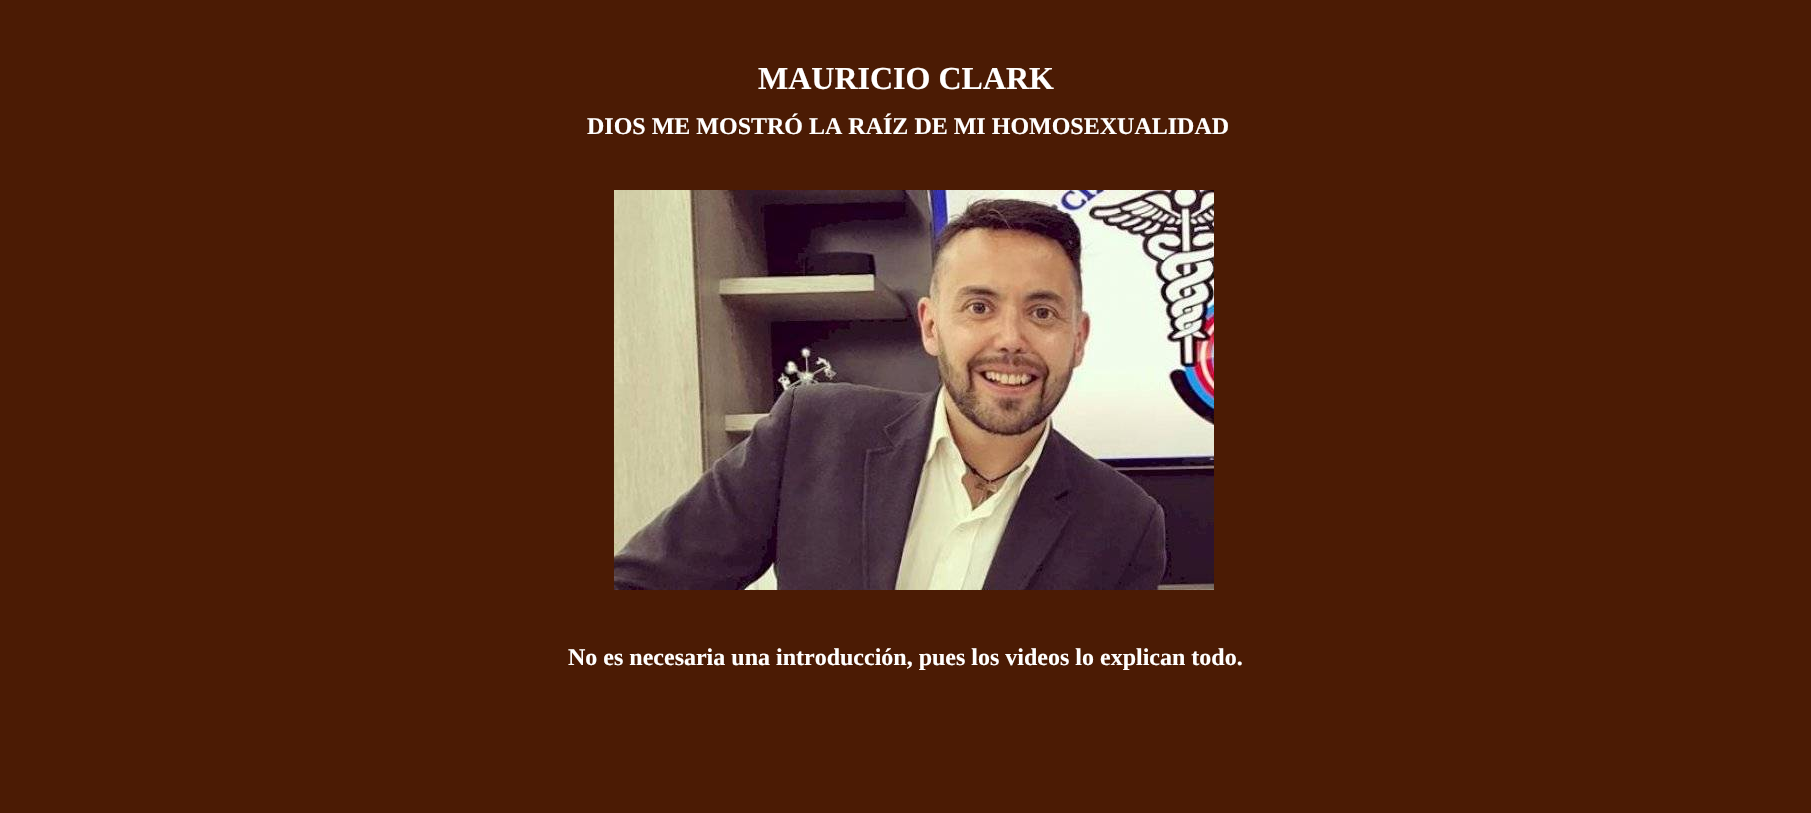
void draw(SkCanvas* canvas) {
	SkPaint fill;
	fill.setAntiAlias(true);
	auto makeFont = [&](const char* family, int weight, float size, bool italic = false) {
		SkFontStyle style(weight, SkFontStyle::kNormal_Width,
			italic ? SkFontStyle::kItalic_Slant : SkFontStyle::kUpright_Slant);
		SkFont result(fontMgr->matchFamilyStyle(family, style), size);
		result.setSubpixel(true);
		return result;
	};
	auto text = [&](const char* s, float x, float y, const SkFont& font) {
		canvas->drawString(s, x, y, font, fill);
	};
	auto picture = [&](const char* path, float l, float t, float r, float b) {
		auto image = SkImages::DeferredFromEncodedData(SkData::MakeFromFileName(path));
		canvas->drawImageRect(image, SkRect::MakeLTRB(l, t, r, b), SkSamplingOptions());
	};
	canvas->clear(0xFF4B1B04);
	picture("image0.png", 614, 190, 1214, 590);
	auto font1 = makeFont("Liberation Serif", 700, 32);
	fill.setColor(0xFFFFFFFF);
	text("MAURICIO CLARK", 758, 89, font1);
	auto font2 = makeFont("Liberation Serif", 700, 24);
	text("DIOS ME MOSTRÓ LA RAÍZ DE MI HOMOSEXUALIDAD", 587, 134, font2);
	text("No es necesaria una introducción, pues los videos lo explican todo.", 568, 665, font2);
}
